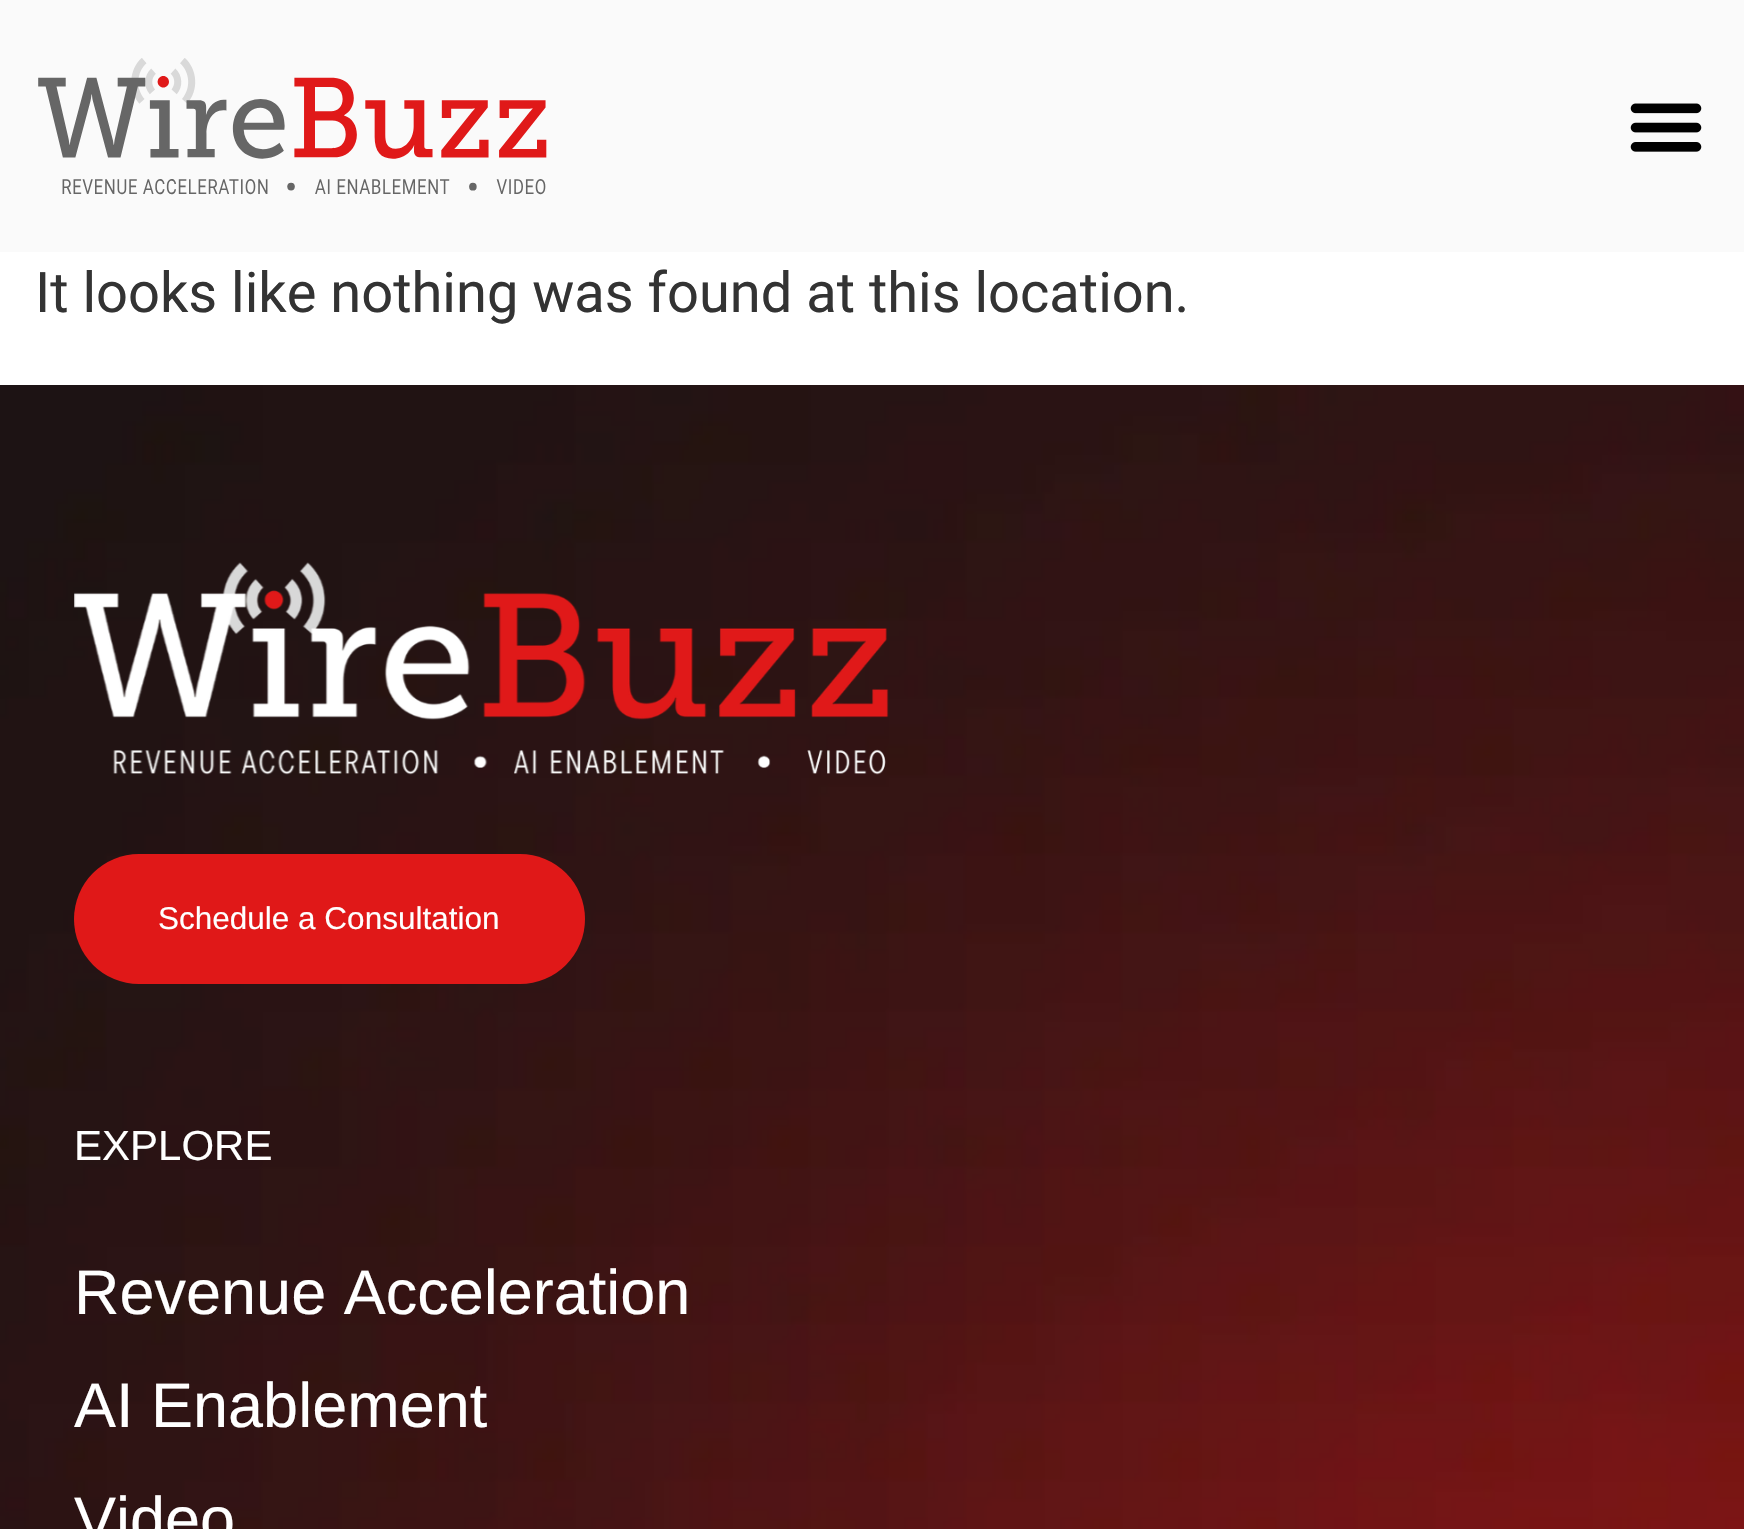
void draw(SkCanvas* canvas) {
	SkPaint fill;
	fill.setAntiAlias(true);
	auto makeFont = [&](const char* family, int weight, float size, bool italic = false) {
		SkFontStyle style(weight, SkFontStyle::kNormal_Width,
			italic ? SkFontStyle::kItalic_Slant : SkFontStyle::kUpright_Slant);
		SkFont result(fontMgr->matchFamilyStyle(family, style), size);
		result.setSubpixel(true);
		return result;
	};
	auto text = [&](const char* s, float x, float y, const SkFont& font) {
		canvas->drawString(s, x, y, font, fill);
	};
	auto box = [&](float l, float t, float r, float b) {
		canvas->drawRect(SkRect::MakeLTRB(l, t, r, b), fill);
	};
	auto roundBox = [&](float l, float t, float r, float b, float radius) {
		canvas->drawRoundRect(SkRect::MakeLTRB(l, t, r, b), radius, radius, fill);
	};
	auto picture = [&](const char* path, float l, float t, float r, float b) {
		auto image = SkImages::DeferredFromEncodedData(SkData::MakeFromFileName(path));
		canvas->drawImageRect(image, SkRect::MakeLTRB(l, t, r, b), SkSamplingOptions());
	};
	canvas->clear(0xFFFFFFFF);
	fill.setColor(0xFFFAFAFA);
	box(0, 0, 1744, 252);
	picture("image0.png", 38, 58, 547, 195);
	picture("image1.png", 1630, 103, 1702, 152);
	picture("image2.png", 0, 385, 1744, 1529);
	picture("image3.png", 74, 562, 889, 775);
	fill.setColor(0xFFE01818);
	roundBox(74, 854, 585, 984, 65);
	auto font1 = makeFont("Roboto", 400, 56);
	fill.setColor(0xFF333333);
	text("It looks like nothing was found at this location.", 35, 312, font1);
	auto font2 = makeFont("Liberation Sans", 400, 31.5f);
	fill.setColor(0xFFFFFFFF);
	text("Schedule a Consultation", 158, 929, font2);
	auto font3 = makeFont("Liberation Sans", 400, 42);
	text("EXPLORE", 74, 1160, font3);
	auto font4 = makeFont("Liberation Sans", 400, 63);
	text("Revenue Acceleration", 74, 1314, font4);
	text("AI Enablement", 74, 1427, font4);
	text("Video", 74, 1541, font4);
}
